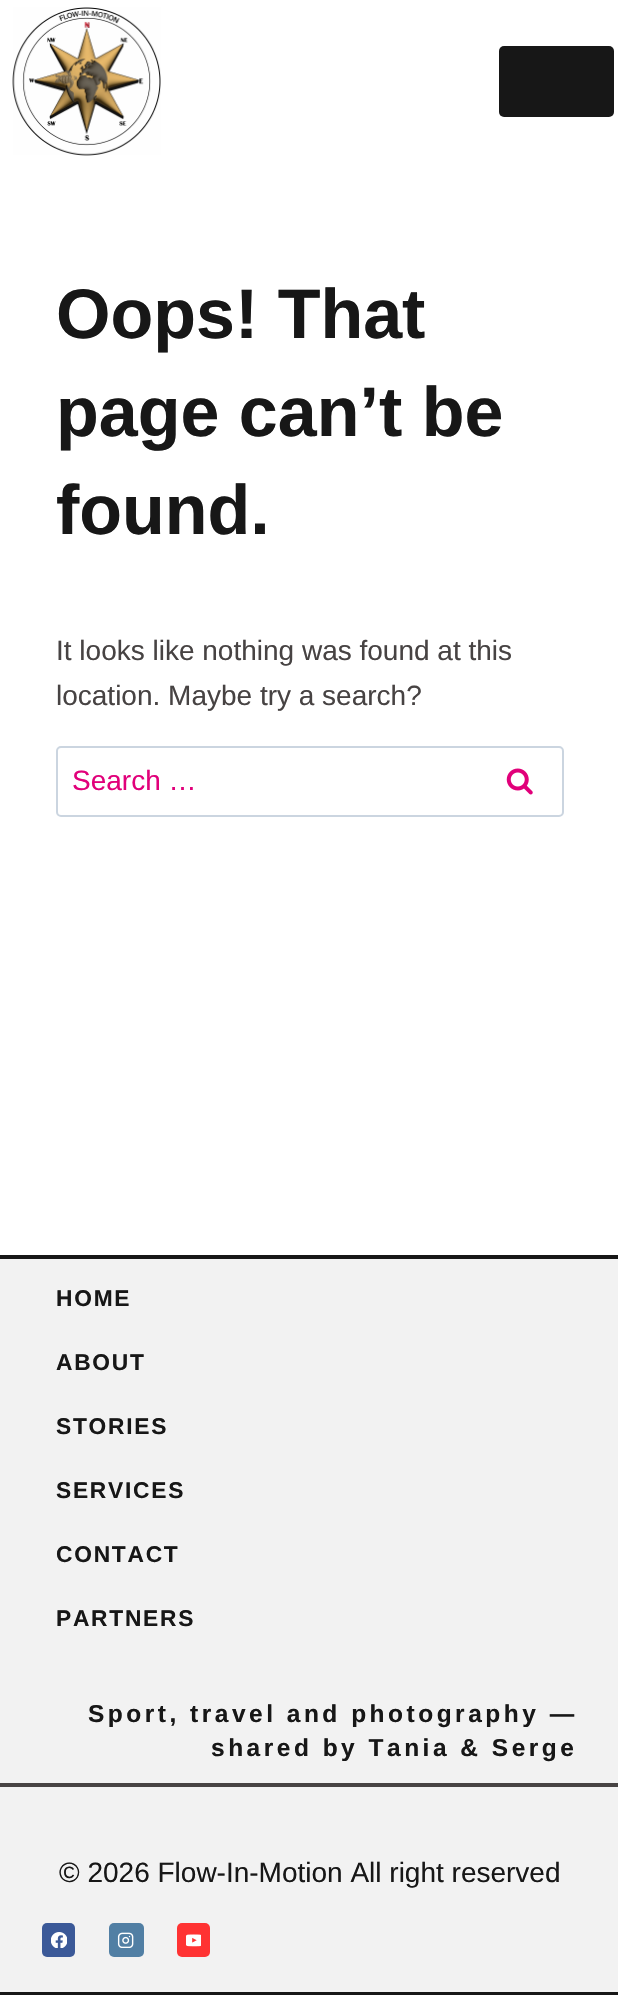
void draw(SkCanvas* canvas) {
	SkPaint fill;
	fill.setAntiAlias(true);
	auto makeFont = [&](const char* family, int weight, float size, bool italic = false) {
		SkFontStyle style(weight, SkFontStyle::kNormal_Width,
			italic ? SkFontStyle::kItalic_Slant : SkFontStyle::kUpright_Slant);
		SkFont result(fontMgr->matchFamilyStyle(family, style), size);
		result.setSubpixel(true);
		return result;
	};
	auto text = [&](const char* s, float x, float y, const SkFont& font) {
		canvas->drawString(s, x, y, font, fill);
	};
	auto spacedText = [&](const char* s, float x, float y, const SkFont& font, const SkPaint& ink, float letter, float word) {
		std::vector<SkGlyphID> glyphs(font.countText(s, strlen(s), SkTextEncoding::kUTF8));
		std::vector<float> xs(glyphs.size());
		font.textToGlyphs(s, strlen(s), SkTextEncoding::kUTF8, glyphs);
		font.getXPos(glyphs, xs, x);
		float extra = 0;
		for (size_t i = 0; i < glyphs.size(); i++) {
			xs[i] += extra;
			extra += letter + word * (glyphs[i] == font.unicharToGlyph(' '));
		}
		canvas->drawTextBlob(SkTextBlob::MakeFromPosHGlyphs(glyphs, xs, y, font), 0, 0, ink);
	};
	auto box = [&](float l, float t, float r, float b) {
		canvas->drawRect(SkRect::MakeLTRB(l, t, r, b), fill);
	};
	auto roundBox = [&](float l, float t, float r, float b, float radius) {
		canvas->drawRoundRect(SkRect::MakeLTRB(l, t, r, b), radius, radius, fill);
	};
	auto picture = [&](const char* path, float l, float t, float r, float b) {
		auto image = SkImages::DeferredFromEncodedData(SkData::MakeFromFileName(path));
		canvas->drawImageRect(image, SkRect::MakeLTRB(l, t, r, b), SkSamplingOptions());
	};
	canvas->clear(0xFFFFFFFF);
	picture("image0.png", 12, 7, 161, 156);
	fill.setColor(0xFF171717);
	roundBox(499, 46, 614, 117, 5);
	fill.setStyle(SkPaint::kStroke_Style);
	fill.setStrokeWidth(2);
	fill.setColor(0xFFCBD5E0);
	canvas->drawRoundRect(SkRect::MakeLTRB(57, 747, 563, 816), 4, 4, fill);
	picture("image1.png", 506, 768, 533, 795);
	fill.setStyle(SkPaint::kFill_Style);
	fill.setColor(0xFFF2F2F2);
	box(0, 1259, 618, 1992);
	fill.setColor(0xFF171717);
	box(0, 1255, 618, 1259);
	fill.setColor(0xFF474343);
	box(0, 1783, 618, 1787);
	fill.setColor(0xFF171717);
	box(0, 1992, 618, 1995);
	fill.setColor(0xFF3B5998);
	roundBox(42, 1923, 75, 1957, 5);
	picture("image2.png", 51, 1932, 67, 1948);
	fill.setColor(0xFF517FA4);
	roundBox(109, 1923, 144, 1957, 5);
	picture("image3.png", 117, 1932, 134, 1948);
	fill.setColor(0xFFFF3333);
	roundBox(177, 1923, 210, 1957, 5);
	picture("image4.png", 186, 1934, 201, 1947);
	auto font1 = makeFont("Liberation Sans", 700, 70);
	fill.setColor(0xFF171717);
	text("Oops! That", 56, 338, font1);
	text("page can’t be", 56, 436, font1);
	text("found.", 56, 534, font1);
	auto font2 = makeFont("Liberation Sans", 400, 28);
	fill.setColor(0xFF474343);
	text("It looks like nothing was found at this", 56, 660, font2);
	text("location. Maybe try a search?", 56, 705, font2);
	fill.setColor(0xFFE1007A);
	text("Search …", 72, 790, font2);
	auto font3 = makeFont("Liberation Sans", 700, 22.75f);
	fill.setColor(0xFF171717);
	spacedText("HOME", 56, 1306, font3, fill, 1.75f, 0);
	spacedText("ABOUT", 56, 1370, font3, fill, 1.75f, 0);
	spacedText("STORIES", 56, 1434, font3, fill, 1.75f, 0);
	spacedText("SERVICES", 56, 1498, font3, fill, 1.75f, 0);
	spacedText("CONTACT", 56, 1562, font3, fill, 1.75f, 0);
	spacedText("PARTNERS", 56, 1626, font3, fill, 1.75f, 0);
	auto font4 = makeFont("Liberation Sans", 700, 24.5f);
	spacedText("Sport, travel and photography —", 88, 1722, font4, fill, 3.5f, 0);
	spacedText("shared by Tania & Serge", 211, 1756, font4, fill, 3.5f, 0);
	text("© 2026 Flow-In-Motion All right reserved", 59, 1882, font2);
}
